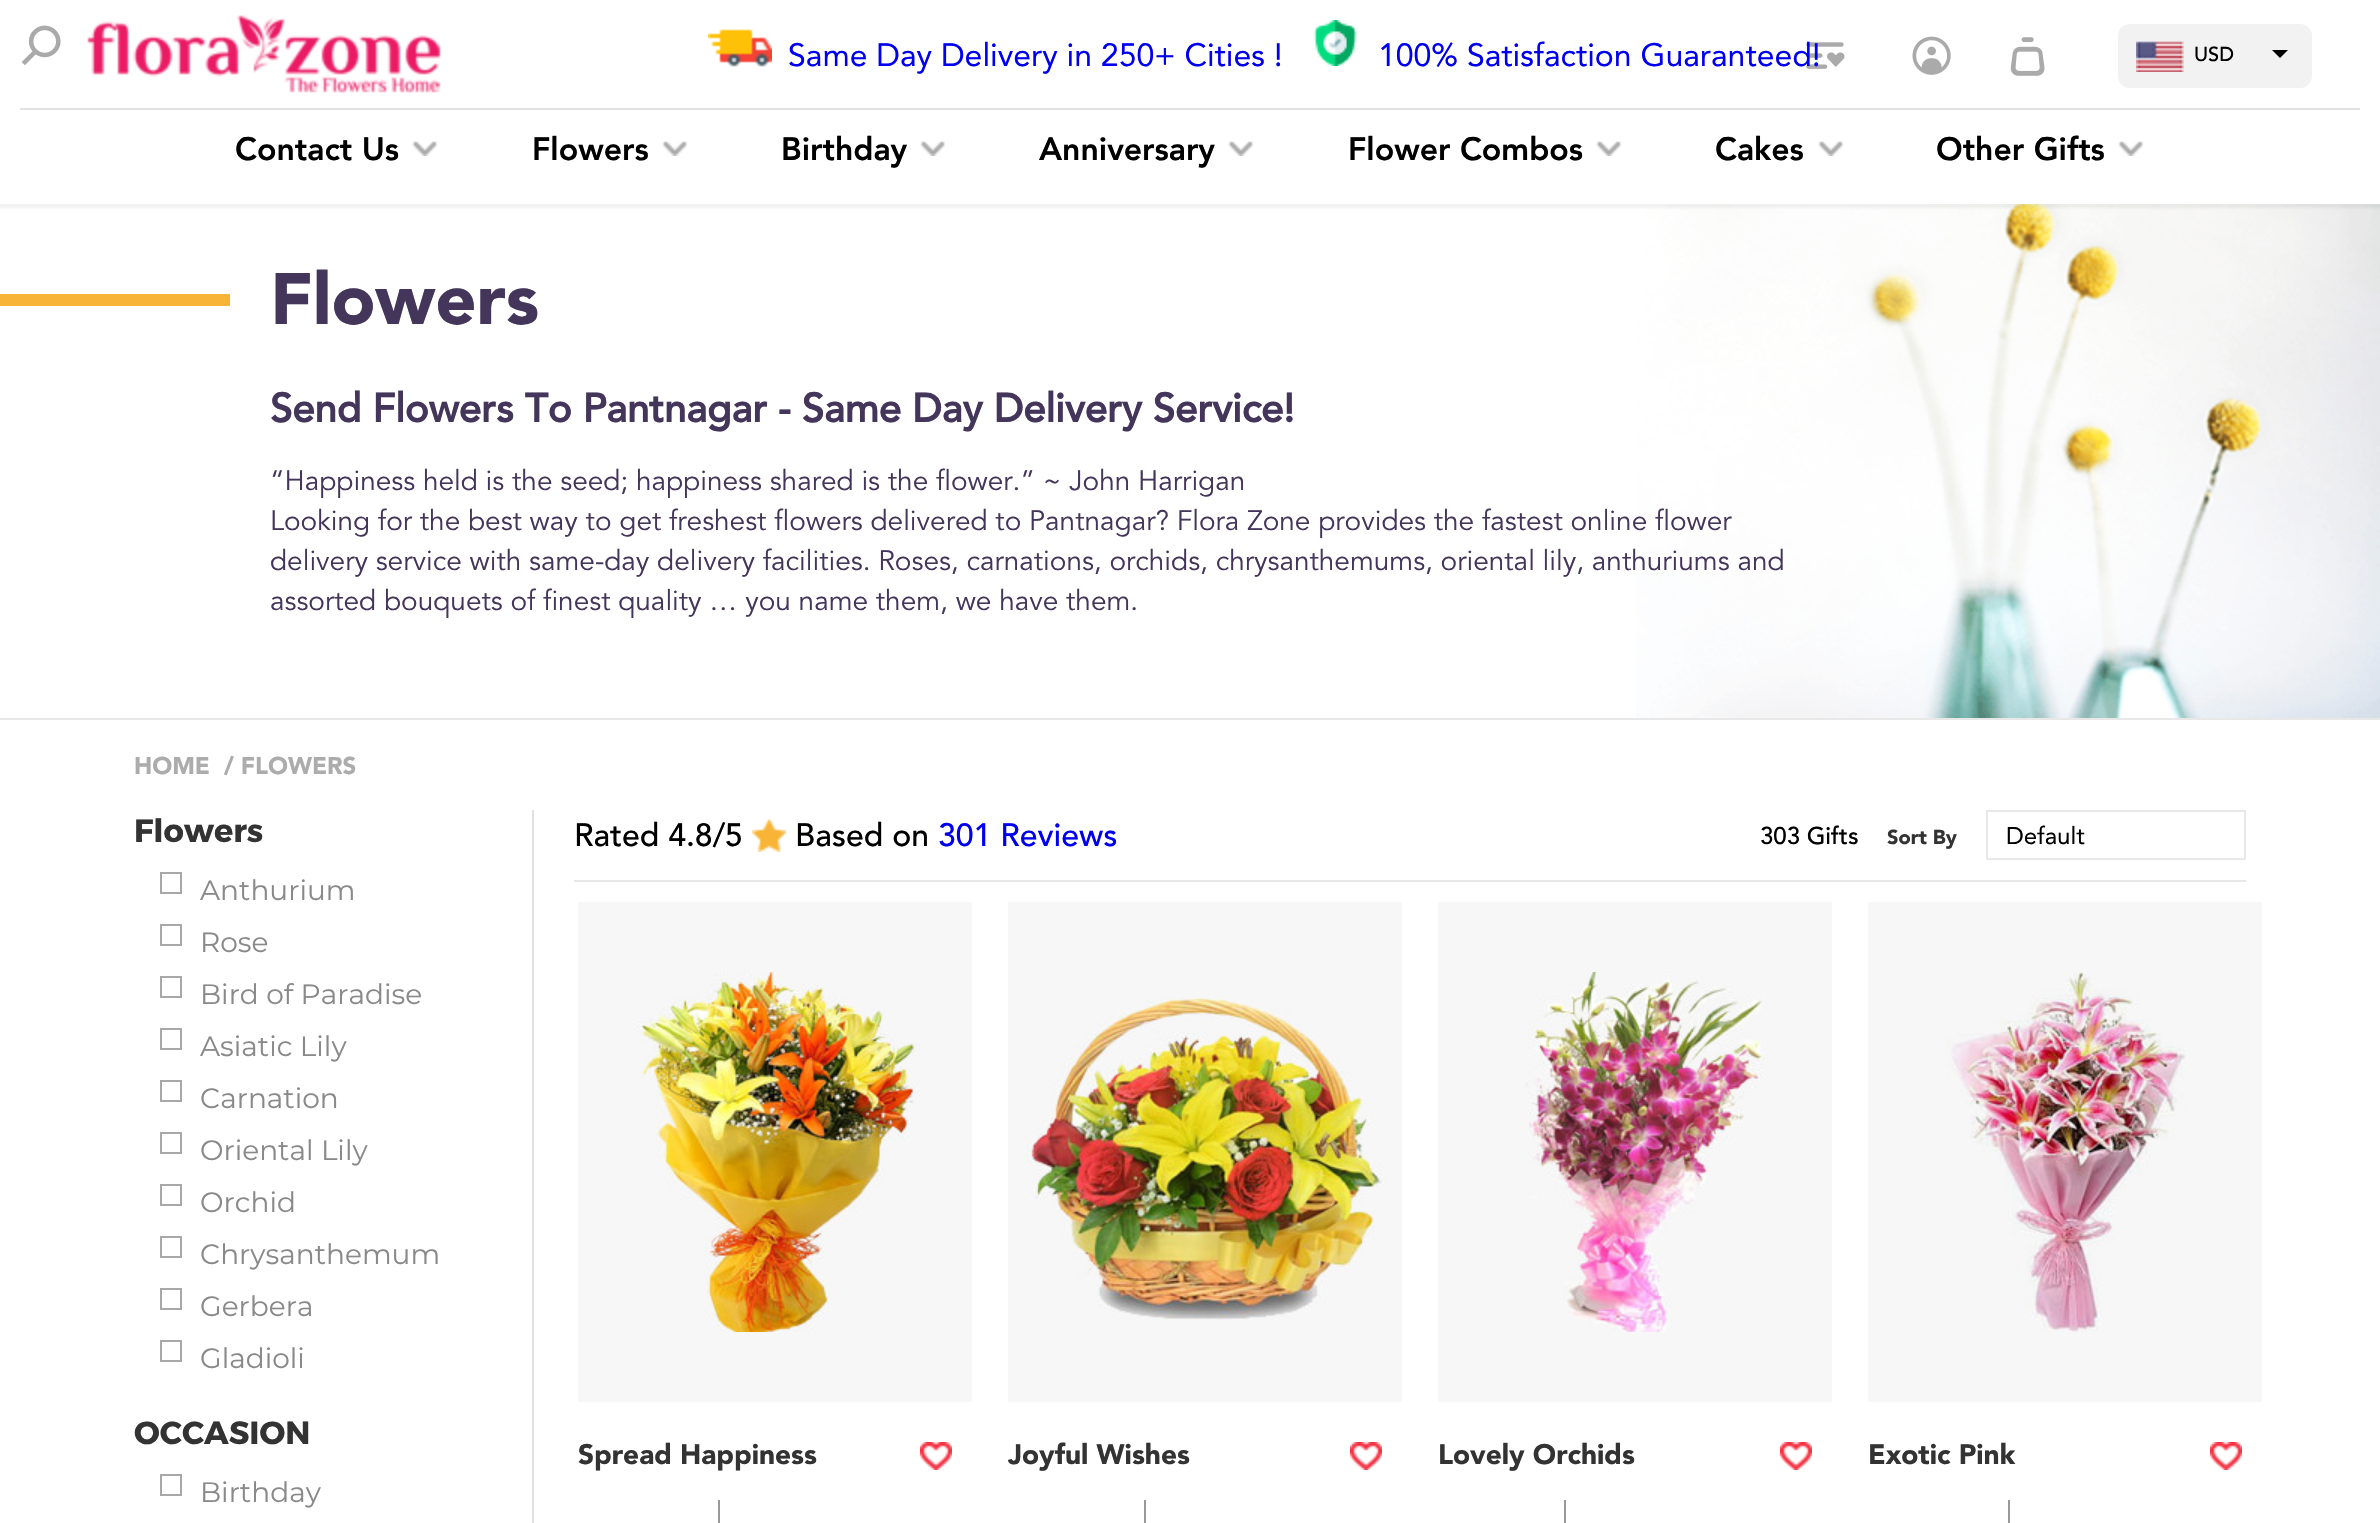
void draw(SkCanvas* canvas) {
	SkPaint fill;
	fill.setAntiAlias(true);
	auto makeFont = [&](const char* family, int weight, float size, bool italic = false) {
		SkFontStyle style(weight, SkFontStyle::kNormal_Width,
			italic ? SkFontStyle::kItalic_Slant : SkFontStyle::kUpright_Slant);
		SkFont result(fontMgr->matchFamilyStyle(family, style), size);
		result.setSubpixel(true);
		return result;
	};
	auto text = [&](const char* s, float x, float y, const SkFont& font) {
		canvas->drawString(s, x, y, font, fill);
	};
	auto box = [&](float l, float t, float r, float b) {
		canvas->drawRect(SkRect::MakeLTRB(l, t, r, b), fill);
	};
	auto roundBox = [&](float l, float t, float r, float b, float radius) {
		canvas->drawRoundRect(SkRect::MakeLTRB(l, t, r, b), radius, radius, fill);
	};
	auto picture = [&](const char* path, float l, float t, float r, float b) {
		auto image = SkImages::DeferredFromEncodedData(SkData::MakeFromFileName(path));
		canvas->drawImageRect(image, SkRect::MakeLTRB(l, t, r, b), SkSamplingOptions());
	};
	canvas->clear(0xFFFFFFFF);
	picture("image9.png", 1636, 204, 2380, 718);
	fill.setColor(0x0D000000);
	fill.setMaskFilter(SkMaskFilter::MakeBlur(kNormal_SkBlurStyle, 1));
	canvas->drawRect(SkRect::MakeLTRB(-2, -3, 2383, 208), fill);
	fill.setMaskFilter(nullptr);
	fill.setColor(0xFFFFFFFF);
	box(0, 0, 2380, 204);
	fill.setColor(0xFFE2E2E2);
	box(20, 108, 2360, 110);
	picture("image0.png", 87, 15, 441, 93);
	picture("image1.png", 708, 29, 772, 67);
	picture("image2.png", 1313, 20, 1357, 66);
	picture("image3.png", 1806, 42, 1845, 69);
	picture("image4.png", 1912, 36, 1951, 75);
	picture("image5.png", 2010, 37, 2045, 76);
	fill.setColor(0xFFF2F2F2);
	roundBox(2118, 24, 2312, 88, 12);
	picture("image6.png", 2136, 41, 2184, 72);
	fill.setColor(0xFF000000);
	canvas->drawPath(SkPathBuilder().moveTo(2272, 50).lineTo(2288, 50).lineTo(2280, 58).close().detach(), fill);
	picture("image7.png", 21, 25, 61, 66);
	picture("image8.png", 412, 141, 438, 156);
	picture("image8.png", 662, 141, 688, 156);
	picture("image8.png", 920, 141, 946, 156);
	picture("image8.png", 1228, 141, 1254, 156);
	picture("image8.png", 1596, 141, 1622, 156);
	picture("image8.png", 1818, 141, 1844, 156);
	picture("image8.png", 2118, 141, 2144, 156);
	fill.setColor(0xFFE8E8E8);
	box(0, 718, 2380, 720);
	fill.setColor(0xFFF8B437);
	box(0, 294, 230, 306);
	fill.setStyle(SkPaint::kStroke_Style);
	fill.setStrokeWidth(2);
	fill.setColor(0xFFA8A8A8);
	canvas->drawRect(SkRect::MakeLTRB(161, 873, 181, 893), fill);
	canvas->drawRect(SkRect::MakeLTRB(161, 925, 181, 945), fill);
	canvas->drawRect(SkRect::MakeLTRB(161, 977, 181, 997), fill);
	canvas->drawRect(SkRect::MakeLTRB(161, 1029, 181, 1049), fill);
	canvas->drawRect(SkRect::MakeLTRB(161, 1081, 181, 1101), fill);
	canvas->drawRect(SkRect::MakeLTRB(161, 1133, 181, 1153), fill);
	canvas->drawRect(SkRect::MakeLTRB(161, 1185, 181, 1205), fill);
	canvas->drawRect(SkRect::MakeLTRB(161, 1237, 181, 1257), fill);
	canvas->drawRect(SkRect::MakeLTRB(161, 1289, 181, 1309), fill);
	canvas->drawRect(SkRect::MakeLTRB(161, 1341, 181, 1361), fill);
	canvas->drawRect(SkRect::MakeLTRB(161, 1475, 181, 1495), fill);
	fill.setStyle(SkPaint::kFill_Style);
	fill.setColor(0xFFE1E1E1);
	box(532, 810, 534, 1523);
	fill.setColor(0xFFE8E8E8);
	box(574, 880, 2246, 882);
	picture("image10.png", 752, 818, 786, 852);
	fill.setStyle(SkPaint::kStroke_Style);
	canvas->drawRect(SkRect::MakeLTRB(1987, 811, 2245, 859), fill);
	fill.setStyle(SkPaint::kFill_Style);
	fill.setColor(0xFFF7F7F7);
	box(578, 902, 972, 1402);
	picture("image11.png", 634, 972, 920, 1332);
	picture("image12.png", 920, 1442, 952, 1470);
	fill.setColor(0xFF999999);
	box(718, 1500, 720, 1523);
	fill.setColor(0xFFF7F7F7);
	box(1008, 902, 1402, 1402);
	picture("image13.png", 1026, 996, 1386, 1320);
	picture("image12.png", 1350, 1442, 1382, 1470);
	fill.setColor(0xFF999999);
	box(1144, 1500, 1146, 1523);
	fill.setColor(0xFFF7F7F7);
	box(1438, 902, 1832, 1402);
	picture("image14.png", 1525, 972, 1768, 1332);
	picture("image12.png", 1780, 1442, 1812, 1470);
	fill.setColor(0xFF999999);
	box(1564, 1500, 1566, 1523);
	fill.setColor(0xFFF7F7F7);
	box(1868, 902, 2262, 1402);
	picture("image15.png", 1946, 972, 2186, 1332);
	picture("image12.png", 2210, 1442, 2242, 1470);
	fill.setColor(0xFF999999);
	box(2008, 1500, 2010, 1523);
	auto font1 = makeFont("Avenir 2", 400, 32);
	fill.setColor(0xFF0000EE);
	text("Same Day Delivery in 250+ Cities !", 788, 66, font1);
	text("100% Satisfaction Guaranteed!", 1378, 66, font1);
	auto font2 = makeFont("Avenir", 500, 20);
	fill.setColor(0xFF000000);
	text("USD", 2194, 61, font2);
	auto font3 = makeFont("Avenir 2", 900, 32);
	text("Contact Us", 235, 160, font3);
	text("Flowers", 532, 160, font3);
	text("Birthday", 781, 160, font3);
	text("Anniversary", 1039, 160, font3);
	text("Flower Combos", 1348, 160, font3);
	text("Cakes", 1715, 160, font3);
	text("Other Gifts", 1936, 160, font3);
	auto font4 = makeFont("Avenir", 900, 72);
	fill.setColor(0xFF44355B);
	text("Flowers", 270, 324, font4);
	auto font5 = makeFont("Avenir", 700, 40);
	text("Send Flowers To Pantnagar - Same Day Delivery Service!", 270, 422, font5);
	auto font6 = makeFont("Avenir", 400, 28);
	text("“Happiness held is the seed; happiness shared is the flower.” ~ John Harrigan", 270, 490, font6);
	text("Looking for the best way to get freshest flowers delivered to Pantnagar? Flora Zone provides the fastest online flower", 270, 530, font6);
	text("delivery service with same-day delivery facilities. Roses, carnations, orchids, chrysanthemums, oriental lily, anthuriums and", 270, 570, font6);
	text("assorted bouquets of finest quality … you name them, we have them.", 270, 610, font6);
	auto font7 = makeFont("Avenir", 900, 24);
	fill.setColor(0xFFACACAC);
	text("HOME", 134, 774, font7);
	text("/ FLOWERS", 224, 774, font7);
	auto font8 = makeFont("Montserrat", 700, 32);
	fill.setColor(0xFF333333);
	text("Flowers", 134, 842, font8);
	auto font9 = makeFont("Montserrat", 400, 28);
	fill.setColor(0xFF898989);
	text("Anthurium", 200, 900, font9);
	text("Rose", 200, 952, font9);
	text("Bird of Paradise", 200, 1004, font9);
	text("Asiatic Lily", 200, 1056, font9);
	text("Carnation", 200, 1108, font9);
	text("Oriental Lily", 200, 1160, font9);
	text("Orchid", 200, 1212, font9);
	text("Chrysanthemum", 200, 1264, font9);
	text("Gerbera", 200, 1316, font9);
	text("Gladioli", 200, 1368, font9);
	fill.setColor(0xFF333333);
	text("OCCASION", 134, 1444, font8);
	fill.setColor(0xFF898989);
	text("Birthday", 200, 1502, font9);
	auto font10 = makeFont("Avenir", 500, 32);
	fill.setColor(0xFF000000);
	text("Rated 4.8/5", 574, 846, font10);
	text("Based on", 795, 846, font10);
	fill.setColor(0xFF0000EE);
	text("301 Reviews", 938, 846, font10);
	auto font11 = makeFont("Avenir", 500, 24);
	fill.setColor(0xFF000000);
	text("303 Gifts", 1760, 844, font11);
	auto font12 = makeFont("Avenir", 900, 20);
	fill.setColor(0xFF333333);
	text("Sort By", 1887, 844, font12);
	auto font13 = makeFont("Avenir 2", 400, 24);
	fill.setColor(0xFF000000);
	text("Default", 2006, 844, font13);
	auto font14 = makeFont("Avenir", 900, 28);
	fill.setColor(0xFF333333);
	text("Spread Happiness", 578, 1464, font14);
	text("Joyful Wishes", 1008, 1464, font14);
	text("Lovely Orchids", 1438, 1464, font14);
	text("Exotic Pink", 1868, 1464, font14);
}
